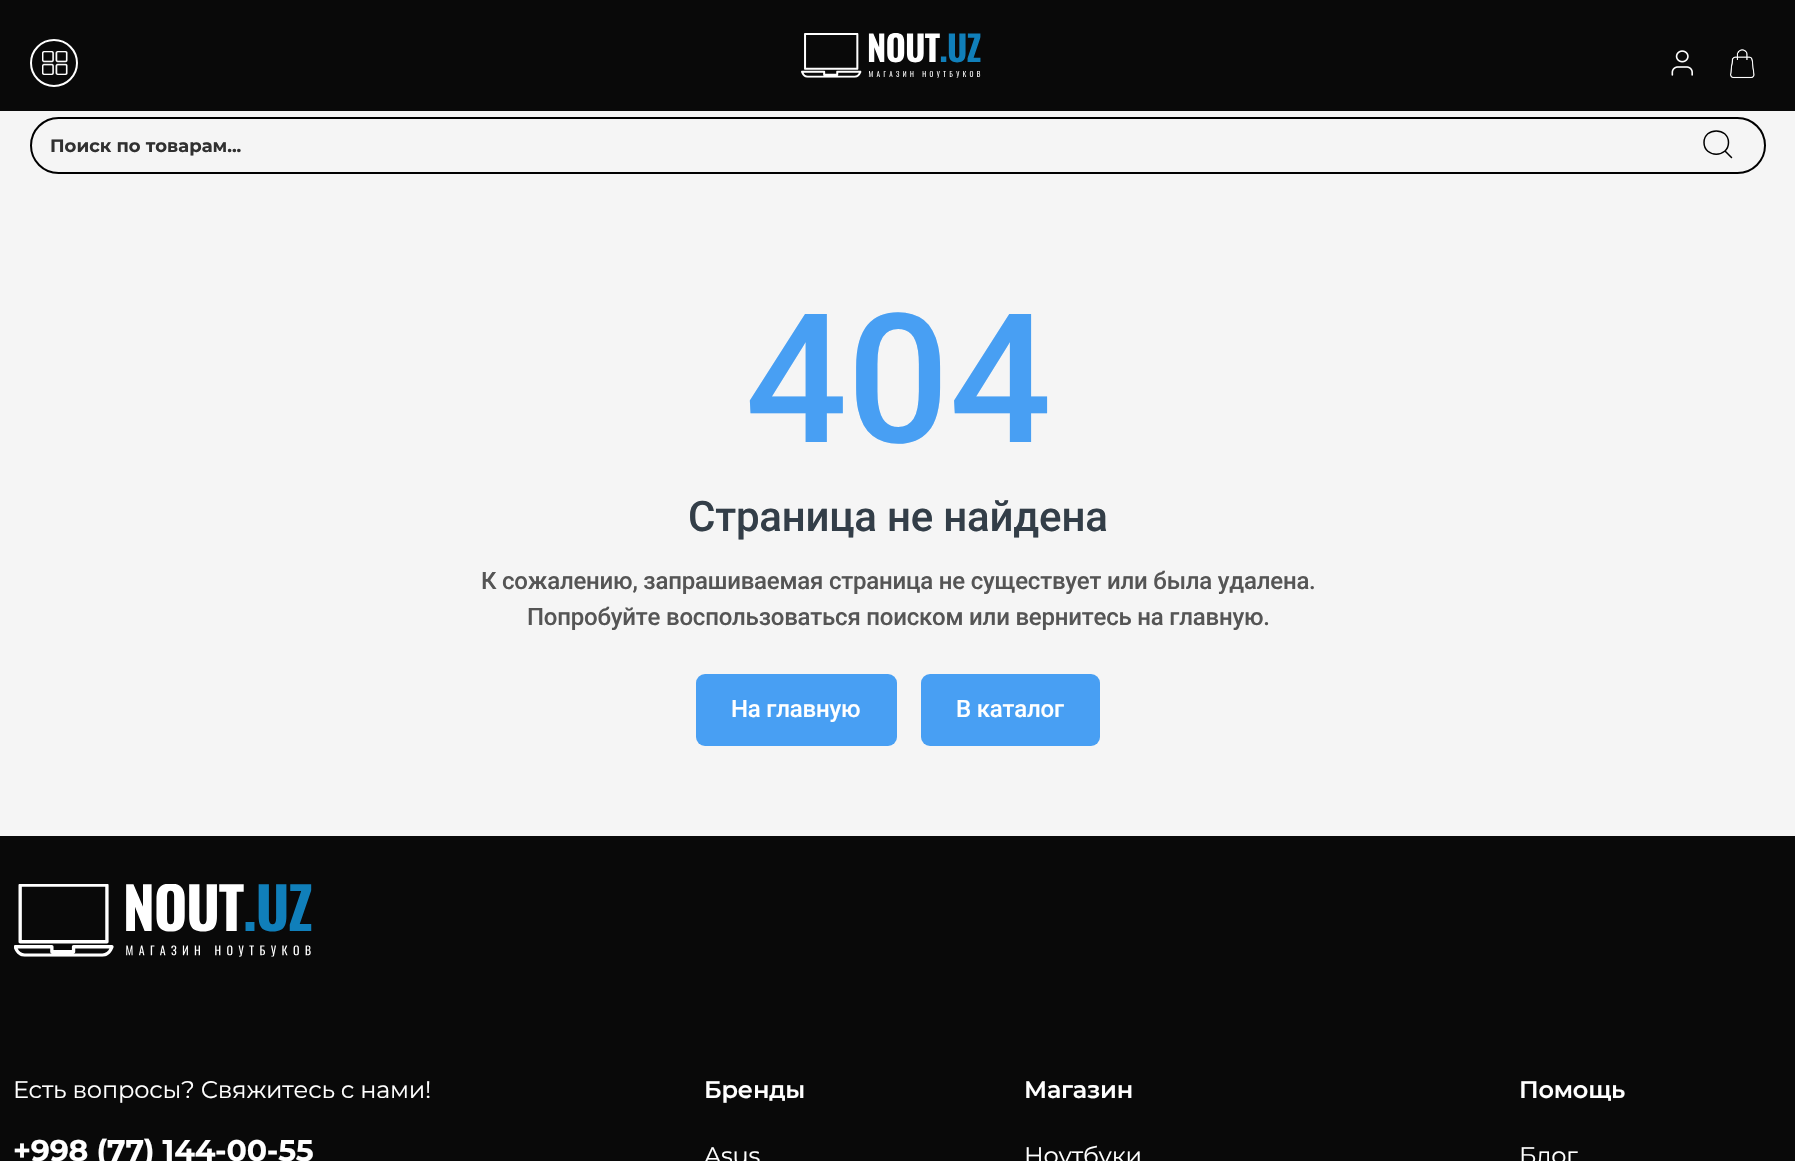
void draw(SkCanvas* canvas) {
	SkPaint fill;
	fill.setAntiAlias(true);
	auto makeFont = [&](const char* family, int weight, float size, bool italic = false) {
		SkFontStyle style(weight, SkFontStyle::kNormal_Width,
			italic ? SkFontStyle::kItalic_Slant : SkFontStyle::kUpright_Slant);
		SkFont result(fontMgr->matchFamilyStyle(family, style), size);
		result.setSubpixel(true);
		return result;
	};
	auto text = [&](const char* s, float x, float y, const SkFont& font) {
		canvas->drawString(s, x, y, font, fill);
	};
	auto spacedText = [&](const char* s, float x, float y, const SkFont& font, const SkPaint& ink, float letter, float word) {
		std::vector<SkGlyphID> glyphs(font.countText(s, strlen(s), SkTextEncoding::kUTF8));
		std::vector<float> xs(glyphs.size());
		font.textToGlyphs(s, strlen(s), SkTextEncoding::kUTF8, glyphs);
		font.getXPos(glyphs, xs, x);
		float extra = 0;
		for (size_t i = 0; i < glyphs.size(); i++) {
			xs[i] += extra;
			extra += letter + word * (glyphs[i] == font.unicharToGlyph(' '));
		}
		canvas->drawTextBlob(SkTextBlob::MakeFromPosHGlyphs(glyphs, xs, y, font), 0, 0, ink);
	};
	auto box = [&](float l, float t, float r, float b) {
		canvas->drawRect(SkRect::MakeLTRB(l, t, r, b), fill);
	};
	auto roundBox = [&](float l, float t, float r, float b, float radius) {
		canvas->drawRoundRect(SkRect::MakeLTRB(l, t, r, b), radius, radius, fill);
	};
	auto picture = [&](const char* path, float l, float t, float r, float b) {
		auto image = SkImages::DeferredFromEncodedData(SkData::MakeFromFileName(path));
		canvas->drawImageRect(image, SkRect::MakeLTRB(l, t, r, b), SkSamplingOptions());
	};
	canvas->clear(0xFFF5F5F5);
	fill.setColor(0xFF090909);
	box(0, 0, 1795, 111);
	fill.setStyle(SkPaint::kStroke_Style);
	fill.setStrokeWidth(2);
	fill.setColor(0xFFFFFFFF);
	canvas->drawCircle(54, 63, 23, fill);
	picture("image0.png", 42, 51, 68, 75);
	picture("image1.png", 801, 33, 981, 78);
	picture("image2.png", 1671, 50, 1693, 76);
	picture("image3.png", 1730, 49, 1755, 79);
	fill.setColor(0xFF000000);
	canvas->drawRoundRect(SkRect::MakeLTRB(31, 118, 1765, 173), 27.5f, 27.5f, fill);
	fill.setStrokeWidth(1.5f);
	fill.setStrokeCap(SkPaint::kRound_Cap);
	fill.setStrokeJoin(SkPaint::kRound_Join);
	canvas->drawPath(SkPathBuilder().moveTo(1731.5f, 157.5f).lineTo(1725, 151).moveTo(1728.5f, 142.5f).cubicTo(1728.5f, 158, 1704, 158, 1704, 142.5f).cubicTo(1704, 127, 1728.5f, 127, 1728.5f, 142.5f).close().detach(), fill);
	fill.setStyle(SkPaint::kFill_Style);
	fill.setColor(0xFF489FF3);
	roundBox(696, 674, 897, 746, 9);
	roundBox(921, 674, 1100, 746, 9);
	fill.setColor(0xFF090909);
	box(0, 836, 1795, 1161);
	picture("image4.png", 14, 884, 312, 957);
	auto font1 = makeFont("Montserrat", 700, 18);
	fill.setColor(0xFF313131);
	text("Поиск по товарам...", 50, 152, font1);
	auto font2 = makeFont("Roboto", 500, 180);
	fill.setColor(0xFF489FF3);
	spacedText("404", 745, 442, font2, fill, -0.2f, 0);
	auto font3 = makeFont("Roboto", 500, 42);
	fill.setColor(0xFF333E48);
	spacedText("Страница не найдена", 688, 531, font3, fill, -0.2f, 0);
	auto font4 = makeFont("Roboto", 500, 24);
	fill.setColor(0xFF555555);
	spacedText("К сожалению, запрашиваемая страница не существует или была удалена.", 481, 589, font4, fill, -0.2f, 0);
	spacedText("Попробуйте воспользоваться поиском или вернитесь на главную.", 527, 625, font4, fill, -0.2f, 0);
	fill.setColor(0xFFFFFFFF);
	spacedText("На главную", 731, 717, font4, fill, -0.2f, 0);
	spacedText("В каталог", 956, 717, font4, fill, -0.2f, 0);
	auto font5 = makeFont("Montserrat", 400, 24);
	spacedText("Есть вопросы? Свяжитесь с нами!", 13, 1098, font5, fill, -0.2f, 0);
	auto font6 = makeFont("Montserrat", 700, 30);
	spacedText("+998 (77) 144-00-55", 13, 1161, font6, fill, -0.2f, 0);
	auto font7 = makeFont("Montserrat", 600, 24);
	spacedText("Бренды", 704, 1098, font7, fill, -0.2f, 0);
	spacedText("Asus", 704, 1164, font5, fill, -0.2f, 0);
	spacedText("Магазин", 1024, 1098, font7, fill, -0.2f, 0);
	spacedText("Ноутбуки", 1024, 1164, font5, fill, -0.2f, 0);
	spacedText("Помощь", 1519, 1098, font7, fill, -0.2f, 0);
	spacedText("Блог", 1519, 1164, font5, fill, -0.2f, 0);
}
